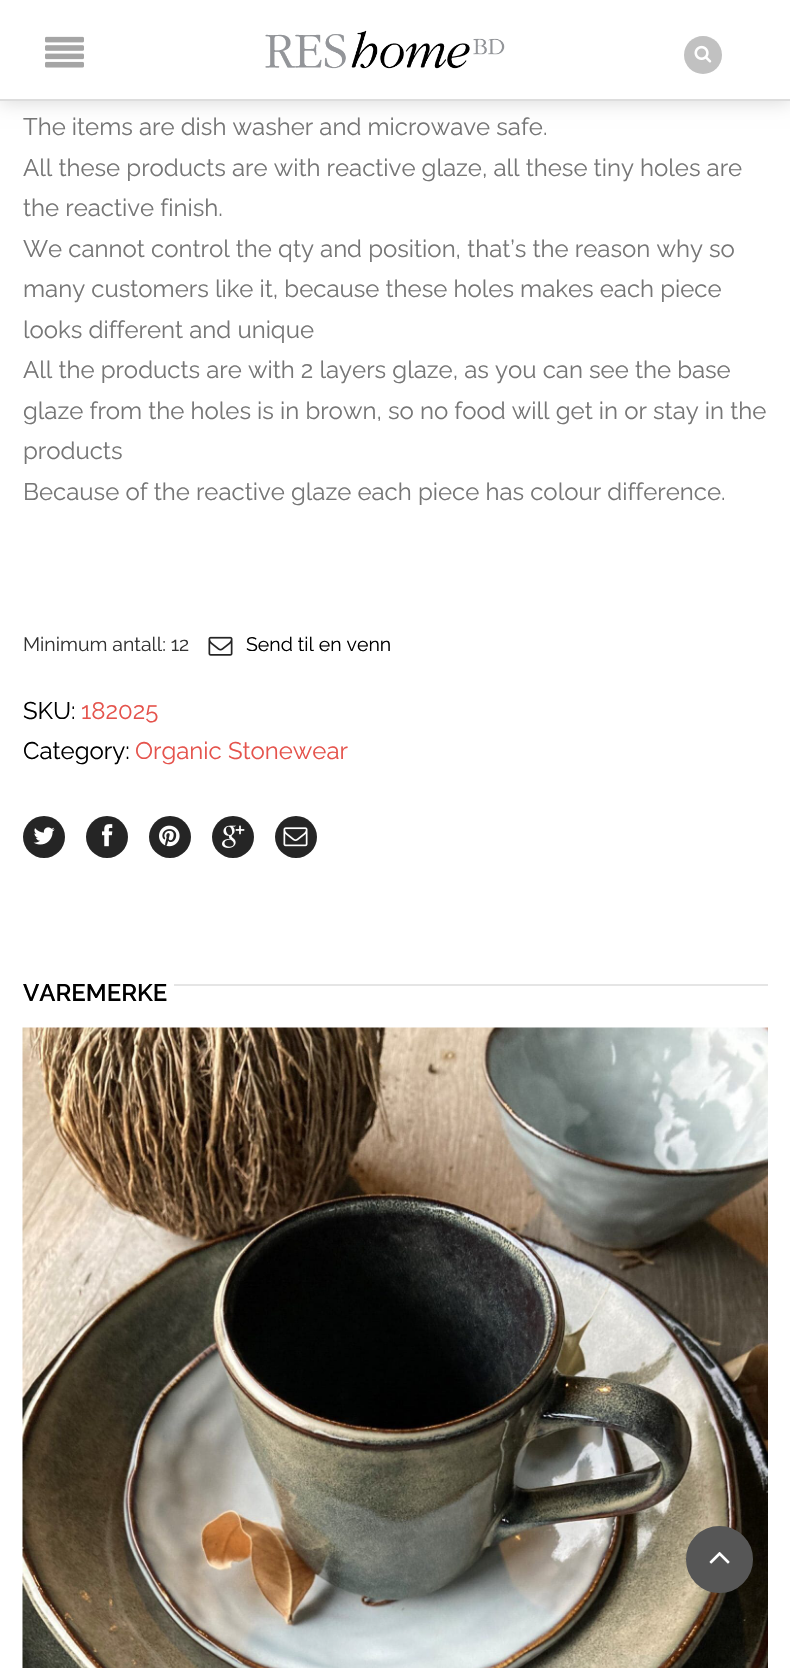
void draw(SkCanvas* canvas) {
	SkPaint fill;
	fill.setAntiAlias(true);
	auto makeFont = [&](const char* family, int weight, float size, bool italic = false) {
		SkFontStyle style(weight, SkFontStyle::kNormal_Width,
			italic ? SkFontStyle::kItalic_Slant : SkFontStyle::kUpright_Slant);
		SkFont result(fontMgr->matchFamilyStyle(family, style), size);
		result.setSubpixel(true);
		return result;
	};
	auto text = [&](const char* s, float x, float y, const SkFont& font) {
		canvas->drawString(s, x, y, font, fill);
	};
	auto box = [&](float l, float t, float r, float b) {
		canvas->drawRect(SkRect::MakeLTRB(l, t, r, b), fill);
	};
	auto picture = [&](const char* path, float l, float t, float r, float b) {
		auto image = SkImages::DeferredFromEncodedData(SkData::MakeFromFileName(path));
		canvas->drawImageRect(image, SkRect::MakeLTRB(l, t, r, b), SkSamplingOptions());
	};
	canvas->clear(0xFFFFFFFF);
	fill.setColor(0x26000000);
	fill.setMaskFilter(SkMaskFilter::MakeBlur(kNormal_SkBlurStyle, 9));
	canvas->drawRect(SkRect::MakeLTRB(0, 2, 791, 102), fill);
	fill.setMaskFilter(nullptr);
	fill.setColor(0xFFFFFFFF);
	box(0, 0, 790, 99);
	fill.setColor(0xFFDDDDDD);
	box(0, 99, 790, 101);
	picture("image0.png", 45, 36, 84, 68);
	picture("image1.png", 265, 30, 505, 69);
	fill.setColor(0xFFC1C1C1);
	canvas->drawCircle(703, 55, 19, fill);
	picture("image2.png", 694, 45, 712, 63);
	picture("image3.png", 208, 636, 233, 656);
	fill.setStyle(SkPaint::kStroke_Style);
	fill.setStrokeWidth(1);
	fill.setColor(0xFF000000);
	canvas->drawCircle(43.5f, 837, 19, fill);
	fill.setStyle(SkPaint::kFill_Style);
	fill.setColor(0xFF252525);
	canvas->drawCircle(44, 837, 21, fill);
	picture("image4.png", 33, 827, 55, 845);
	fill.setStyle(SkPaint::kStroke_Style);
	fill.setColor(0xFF000000);
	canvas->drawCircle(106.5f, 837, 19, fill);
	fill.setStyle(SkPaint::kFill_Style);
	fill.setColor(0xFF252525);
	canvas->drawCircle(107, 837, 21, fill);
	picture("image5.png", 102, 824, 113, 847);
	fill.setStyle(SkPaint::kStroke_Style);
	fill.setColor(0xFF000000);
	canvas->drawCircle(169.5f, 837, 19, fill);
	fill.setStyle(SkPaint::kFill_Style);
	fill.setColor(0xFF252525);
	canvas->drawCircle(170, 837, 21, fill);
	picture("image6.png", 159, 825, 180, 847);
	fill.setStyle(SkPaint::kStroke_Style);
	fill.setColor(0xFF000000);
	canvas->drawCircle(232.5f, 837, 19, fill);
	fill.setStyle(SkPaint::kFill_Style);
	fill.setColor(0xFF252525);
	canvas->drawCircle(233, 837, 21, fill);
	picture("image7.png", 222, 825, 245, 848);
	fill.setStyle(SkPaint::kStroke_Style);
	fill.setColor(0xFF000000);
	canvas->drawCircle(295.5f, 837, 19, fill);
	fill.setStyle(SkPaint::kFill_Style);
	fill.setColor(0xFF252525);
	canvas->drawCircle(296, 837, 21, fill);
	picture("image8.png", 283, 827, 308, 847);
	fill.setColor(0xFFE5E5E5);
	box(174, 984, 768, 986);
	picture("image9.png", 22, 1027, 768, 1668);
	fill.setColor(0xFF565656);
	canvas->drawCircle(719.5f, 1559.5f, 32, fill);
	fill.setStyle(SkPaint::kStroke_Style);
	fill.setStrokeWidth(3);
	canvas->drawCircle(719.5f, 1559.5f, 32, fill);
	picture("image10.png", 709, 1552, 730, 1564);
	auto font1 = makeFont("Raleway", 400, 24);
	fill.setStyle(SkPaint::kFill_Style);
	fill.setColor(0xFF767676);
	text("The items are dish washer and microwave safe.", 23, 135, font1);
	text("All these products are with reactive glaze, all these tiny holes are", 23, 176, font1);
	text("the reactive finish.", 23, 216, font1);
	text("We cannot control the qty and position, that’s the reason why so", 23, 257, font1);
	text("many customers like it, because these holes makes each piece", 23, 297, font1);
	text("looks different and unique", 23, 338, font1);
	text("All the products are with 2 layers glaze, as you can see the base", 23, 378, font1);
	text("glaze from the holes is in brown, so no food will get in or stay in the", 23, 419, font1);
	text("products", 23, 459, font1);
	text("Because of the reactive glaze each piece has colour difference.", 23, 500, font1);
	auto font2 = makeFont("Raleway", 400, 19.5f);
	fill.setColor(0xFF333333);
	text("Minimum antall: 12", 23, 651, font2);
	fill.setColor(0xFF000000);
	text("Send til en venn", 246, 651, font2);
	text("SKU:", 23, 719, font1);
	fill.setColor(0xFFE5534C);
	text("182025", 81, 719, font1);
	fill.setColor(0xFF000000);
	text("Category:", 23, 759, font1);
	fill.setColor(0xFFE5534C);
	text("Organic Stonewear", 135, 759, font1);
	auto font3 = makeFont("Raleway", 600, 24);
	fill.setColor(0xFF000000);
	text("VAREMERKE", 23, 1001, font3);
}
